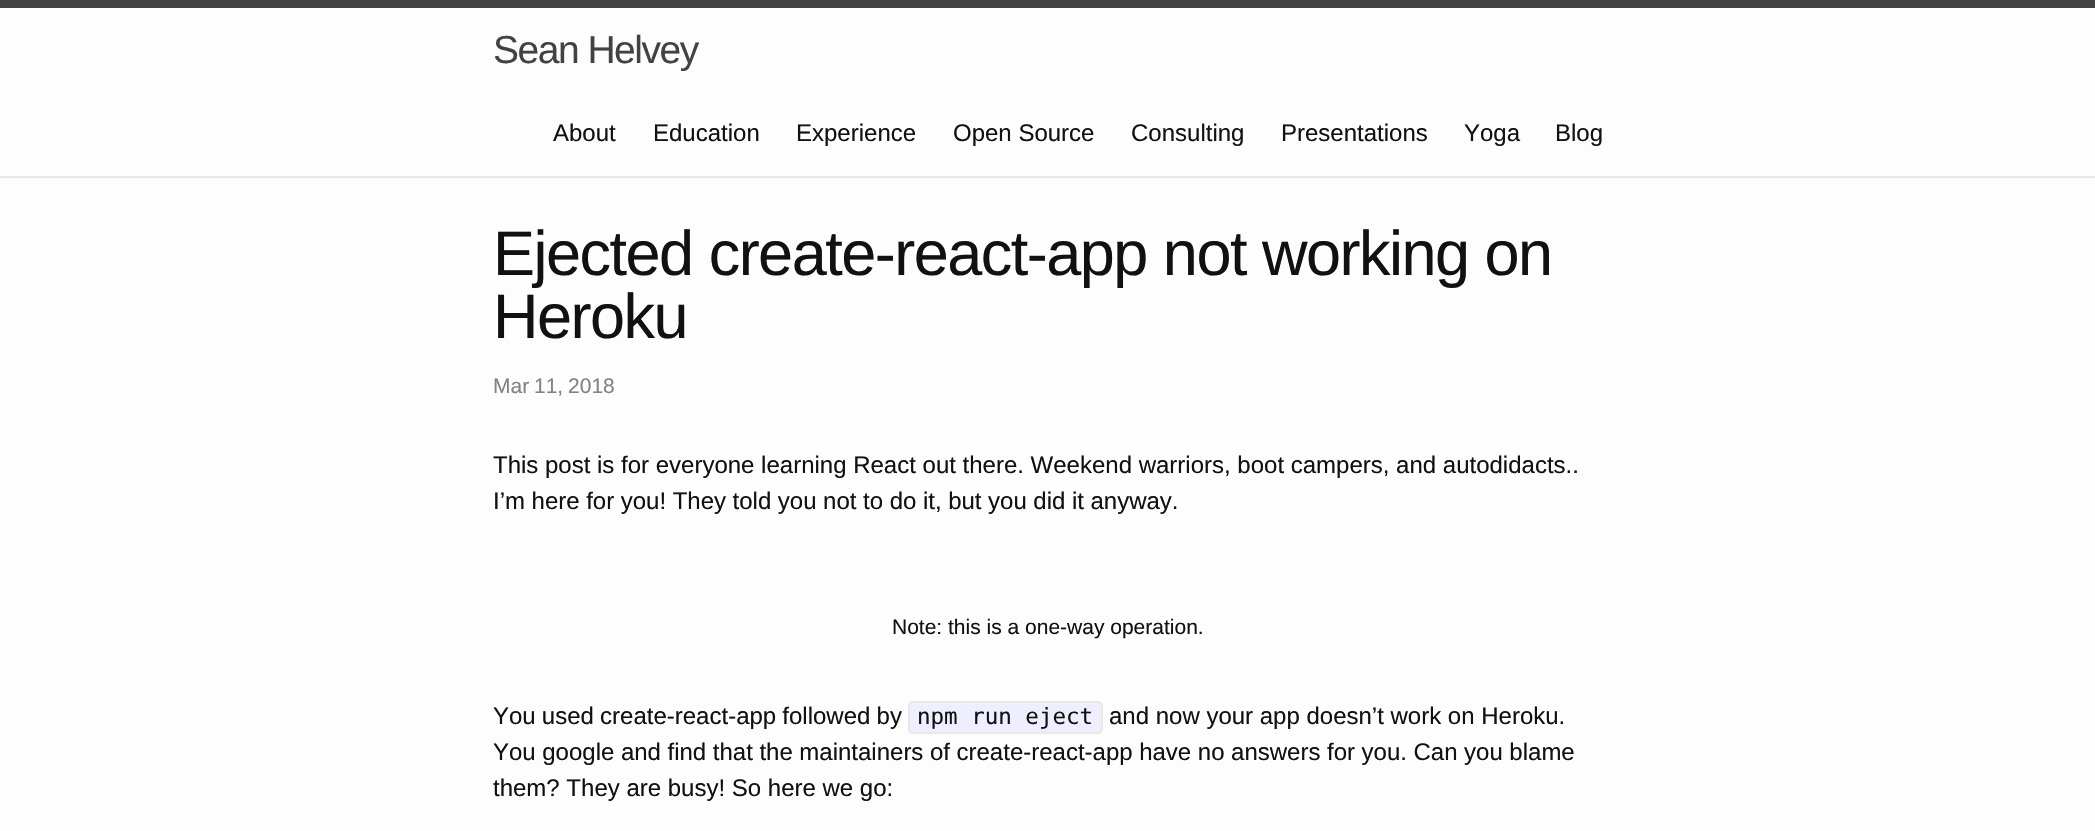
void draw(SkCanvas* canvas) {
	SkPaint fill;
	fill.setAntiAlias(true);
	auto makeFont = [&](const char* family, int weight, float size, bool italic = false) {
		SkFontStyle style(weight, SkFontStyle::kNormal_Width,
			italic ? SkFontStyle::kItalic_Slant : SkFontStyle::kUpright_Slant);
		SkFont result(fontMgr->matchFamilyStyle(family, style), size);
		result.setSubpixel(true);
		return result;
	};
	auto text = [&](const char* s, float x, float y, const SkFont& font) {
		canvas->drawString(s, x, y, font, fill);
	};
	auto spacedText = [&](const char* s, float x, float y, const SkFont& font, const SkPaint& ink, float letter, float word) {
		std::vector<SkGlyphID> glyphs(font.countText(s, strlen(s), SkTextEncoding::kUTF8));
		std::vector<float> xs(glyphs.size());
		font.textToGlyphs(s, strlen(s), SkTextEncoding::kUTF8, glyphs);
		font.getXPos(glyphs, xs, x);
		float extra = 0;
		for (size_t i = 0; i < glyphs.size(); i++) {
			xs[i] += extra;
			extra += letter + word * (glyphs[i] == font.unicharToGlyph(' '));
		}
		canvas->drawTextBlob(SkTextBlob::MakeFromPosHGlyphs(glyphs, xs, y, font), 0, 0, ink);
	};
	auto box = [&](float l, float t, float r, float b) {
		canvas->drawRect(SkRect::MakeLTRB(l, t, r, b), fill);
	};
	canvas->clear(0xFFFDFDFD);
	fill.setColor(0xFF424242);
	box(0, 0, 2095, 8);
	fill.setColor(0xFFE8E8E8);
	box(0, 176, 2095, 178);
	fill.setColor(0xFFEEEEFF);
	canvas->drawRoundRect(SkRect::MakeLTRB(909, 702, 1102, 733), 4, 4, fill);
	fill.setStyle(SkPaint::kStroke_Style);
	fill.setStrokeWidth(2);
	fill.setColor(0xFFE8E8E8);
	canvas->drawRoundRect(SkRect::MakeLTRB(909, 702, 1102, 733), 4, 4, fill);
	auto font1 = makeFont("Liberation Sans", 400, 39);
	fill.setStyle(SkPaint::kFill_Style);
	fill.setColor(0xFF424242);
	spacedText("Sean Helvey", 493, 63, font1, fill, -1.5f, 0);
	auto font2 = makeFont("Liberation Sans", 400, 24);
	fill.setColor(0xFF111111);
	text("About", 553, 141, font2);
	text("Education", 653, 141, font2);
	text("Experience", 796, 141, font2);
	text("Open Source", 953, 141, font2);
	text("Consulting", 1131, 141, font2);
	text("Presentations", 1281, 141, font2);
	text("Yoga", 1464, 141, font2);
	text("Blog", 1555, 141, font2);
	auto font3 = makeFont("Liberation Sans", 400, 63);
	spacedText("Ejected create-react-app not working on", 493, 275, font3, fill, -1.5f, 0);
	spacedText("Heroku", 493, 338, font3, fill, -1.5f, 0);
	auto font4 = makeFont("Liberation Sans", 400, 21);
	fill.setColor(0xFF828282);
	spacedText("Mar 11, 2018", 493, 393, font4, fill, 0, -1);
	fill.setColor(0xFF111111);
	text("This post is for everyone learning React out there. Weekend warriors, boot campers, and autodidacts..", 493, 473, font2);
	spacedText("I’m here for you! They told you not to do it, but you did it anyway.", 493, 509, font2, fill, 0, -0.1f);
	text("Note: this is a one-way operation.", 892, 634, font4);
	spacedText("You used create-react-app followed by", 493, 724, font2, fill, 0, -0.5f);
	auto font5 = makeFont("DejaVu Sans Mono", 400, 22.5f);
	text("npm run eject", 917, 724, font5);
	text("and now your app doesn’t work on Heroku.", 1109, 724, font2);
	spacedText("You google and find that the maintainers of create-react-app have no answers for you. Can you blame", 493, 760, font2, fill, 0, -0.1f);
	text("them? They are busy! So here we go:", 493, 796, font2);
}
